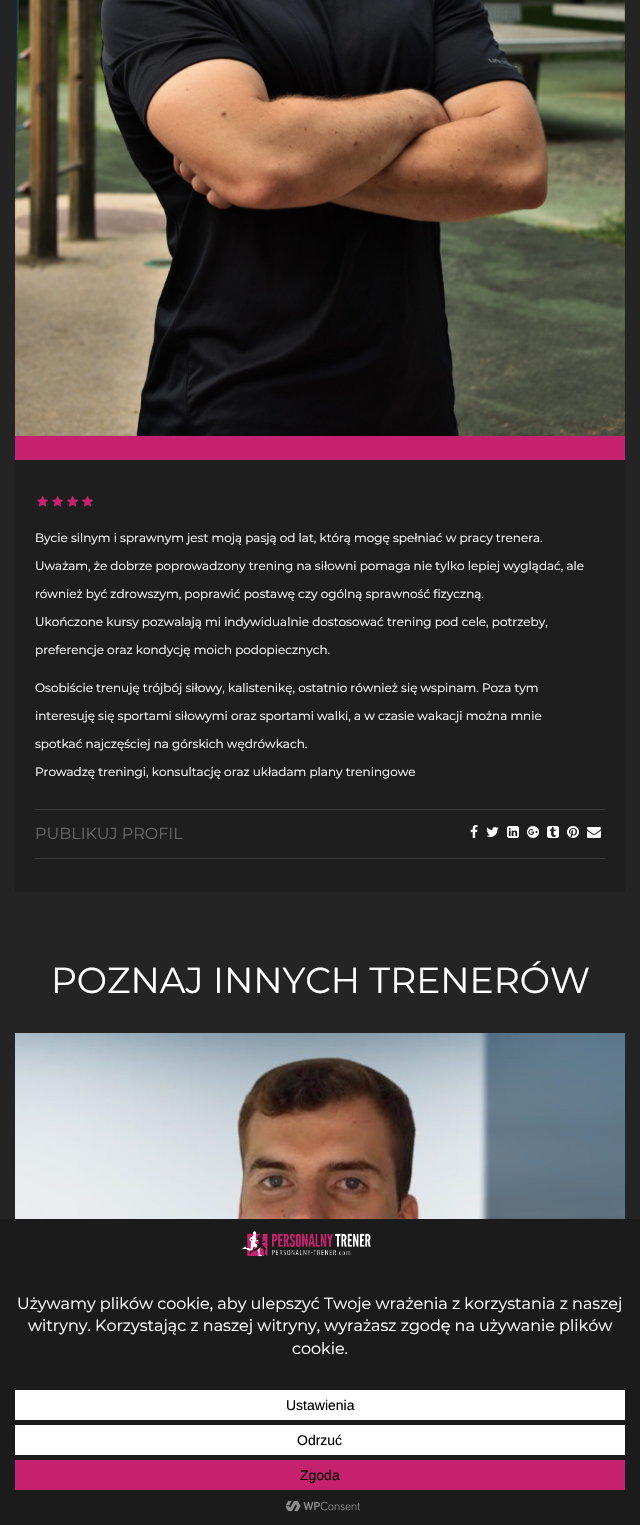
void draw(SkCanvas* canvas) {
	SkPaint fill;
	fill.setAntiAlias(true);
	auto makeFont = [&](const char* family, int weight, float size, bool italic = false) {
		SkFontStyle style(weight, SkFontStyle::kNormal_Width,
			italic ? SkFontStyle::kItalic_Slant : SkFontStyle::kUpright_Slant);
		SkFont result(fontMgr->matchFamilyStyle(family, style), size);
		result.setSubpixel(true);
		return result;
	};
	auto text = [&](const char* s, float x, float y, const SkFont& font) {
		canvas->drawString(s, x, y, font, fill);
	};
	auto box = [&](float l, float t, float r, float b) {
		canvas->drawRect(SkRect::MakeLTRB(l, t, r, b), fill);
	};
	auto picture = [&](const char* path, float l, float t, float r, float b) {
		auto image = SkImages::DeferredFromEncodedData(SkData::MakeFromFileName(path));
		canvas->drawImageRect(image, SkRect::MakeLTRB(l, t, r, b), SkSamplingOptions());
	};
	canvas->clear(0xFF242424);
	picture("image0.png", 15, 0, 625, 436);
	fill.setColor(0xFF1E1E1E);
	box(15, 460, 625, 892);
	fill.setColor(0xFFC5216F);
	box(15, 436, 625, 460);
	picture("image1.png", 37, 496, 48, 507);
	picture("image1.png", 52, 496, 63, 507);
	picture("image1.png", 67, 496, 78, 507);
	picture("image1.png", 82, 496, 93, 507);
	fill.setColor(0xFF353535);
	box(35, 809, 605, 810);
	box(35, 858, 605, 859);
	picture("image2.png", 470, 825, 478, 838);
	picture("image3.png", 486, 827, 499, 837);
	picture("image4.png", 507, 826, 519, 838);
	picture("image5.png", 527, 826, 539, 838);
	picture("image6.png", 547, 826, 559, 838);
	picture("image7.png", 567, 826, 579, 838);
	picture("image8.png", 587, 827, 601, 838);
	picture("image9.png", 15, 1033, 625, 1219);
	fill.setColor(0xFF1B1B1B);
	box(0, 1219, 640, 1525);
	picture("image10.png", 242, 1231, 371, 1257);
	fill.setColor(0xFFFFFFFF);
	box(15, 1390, 625, 1420);
	box(15, 1425, 625, 1455);
	fill.setColor(0xFFC5216F);
	box(15, 1460, 625, 1490);
	picture("image11.png", 285, 1501, 360, 1512);
	auto font1 = makeFont("Montserrat", 400, 12);
	fill.setColor(0xFFFFFFFF);
	text("Bycie silnym i sprawnym jest moją pasją od lat, którą mogę spełniać w pracy trenera.", 35, 542, font1);
	text("Uważam, że dobrze poprowadzony trening na siłowni pomaga nie tylko lepiej wyglądać, ale", 35, 570, font1);
	text("również być zdrowszym, poprawić postawę czy ogólną sprawność fizyczną.", 35, 598, font1);
	text("Ukończone kursy pozwalają mi indywidualnie dostosować trening pod cele, potrzeby,", 35, 626, font1);
	text("preferencje oraz kondycję moich podopiecznych.", 35, 654, font1);
	text("Osobiście trenuję trójbój siłowy, kalistenikę, ostatnio również się wspinam. Poza tym", 35, 692, font1);
	text("interesuję się sportami siłowymi oraz sportami walki, a w czasie wakacji można mnie", 35, 720, font1);
	text("spotkać najczęściej na górskich wędrówkach.", 35, 748, font1);
	text("Prowadzę treningi, konsultację oraz układam plany treningowe", 35, 776, font1);
	auto font2 = makeFont("Montserrat", 400, 16);
	fill.setColor(0xFF666666);
	text("PUBLIKUJ PROFIL", 35, 839, font2);
	auto font3 = makeFont("Montserrat", 400, 36);
	fill.setColor(0xFFFFFFFF);
	text("POZNAJ INNYCH TRENERÓW", 51, 993, font3);
	text("Używamy plików cookie, aby ulepszyć Twoje wrażenia z korzystania z naszej", 17, 1309, font2);
	text("witryny. Korzystając z naszej witryny, wyrażasz zgodę na używanie plików", 28, 1331, font2);
	text("cookie.", 292, 1354, font2);
	auto font4 = makeFont("Liberation Sans", 400, 14);
	fill.setColor(0xFF000000);
	text("Ustawienia", 286, 1410, font4);
	text("Odrzuć", 297, 1445, font4);
	text("Zgoda", 300, 1480, font4);
}
